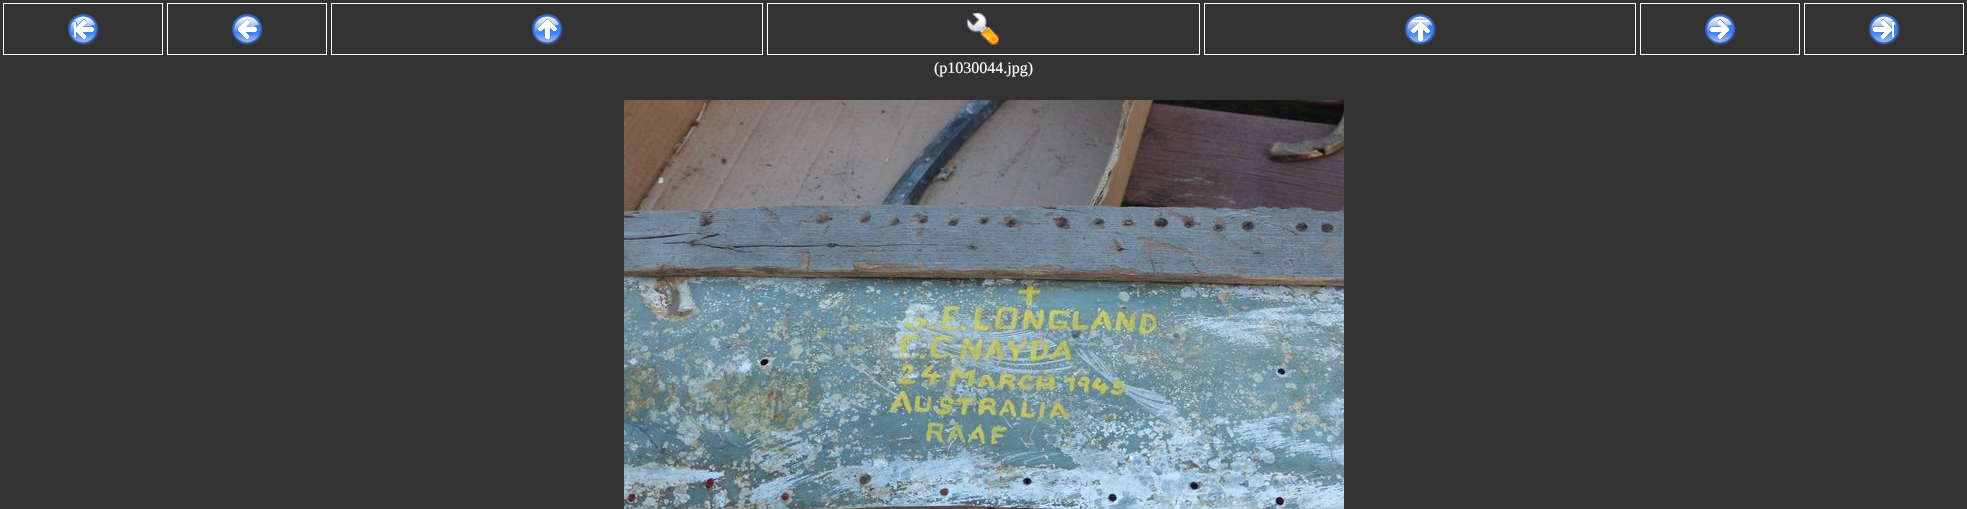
void draw(SkCanvas* canvas) {
	SkPaint fill;
	fill.setAntiAlias(true);
	auto makeFont = [&](const char* family, int weight, float size, bool italic = false) {
		SkFontStyle style(weight, SkFontStyle::kNormal_Width,
			italic ? SkFontStyle::kItalic_Slant : SkFontStyle::kUpright_Slant);
		SkFont result(fontMgr->matchFamilyStyle(family, style), size);
		result.setSubpixel(true);
		return result;
	};
	auto text = [&](const char* s, float x, float y, const SkFont& font) {
		canvas->drawString(s, x, y, font, fill);
	};
	auto picture = [&](const char* path, float l, float t, float r, float b) {
		auto image = SkImages::DeferredFromEncodedData(SkData::MakeFromFileName(path));
		canvas->drawImageRect(image, SkRect::MakeLTRB(l, t, r, b), SkSamplingOptions());
	};
	canvas->clear(0xFF333333);
	fill.setStyle(SkPaint::kStroke_Style);
	fill.setStrokeWidth(1);
	fill.setColor(0xFFFFFFFF);
	canvas->drawRect(SkRect::MakeLTRB(3.5f, 3.5f, 162.5f, 54.5f), fill);
	picture("image0.png", 68, 14, 99, 45);
	canvas->drawRect(SkRect::MakeLTRB(167.5f, 3.5f, 326.5f, 54.5f), fill);
	picture("image1.png", 232, 14, 263, 45);
	canvas->drawRect(SkRect::MakeLTRB(331.5f, 3.5f, 762.5f, 54.5f), fill);
	picture("image2.png", 532, 14, 563, 45);
	canvas->drawRect(SkRect::MakeLTRB(767.5f, 3.5f, 1199.5f, 54.5f), fill);
	picture("image3.png", 967, 13, 999, 45);
	canvas->drawRect(SkRect::MakeLTRB(1204.5f, 3.5f, 1635.5f, 54.5f), fill);
	picture("image4.png", 1405, 14, 1436, 45);
	canvas->drawRect(SkRect::MakeLTRB(1640.5f, 3.5f, 1799.5f, 54.5f), fill);
	picture("image5.png", 1705, 14, 1736, 45);
	canvas->drawRect(SkRect::MakeLTRB(1804.5f, 3.5f, 1963.5f, 54.5f), fill);
	picture("image6.png", 1869, 14, 1900, 45);
	picture("image7.png", 624, 100, 1344, 509);
	auto font1 = makeFont("Liberation Serif", 400, 16);
	fill.setStyle(SkPaint::kFill_Style);
	text("(p1030044.jpg)", 934, 73, font1);
}
